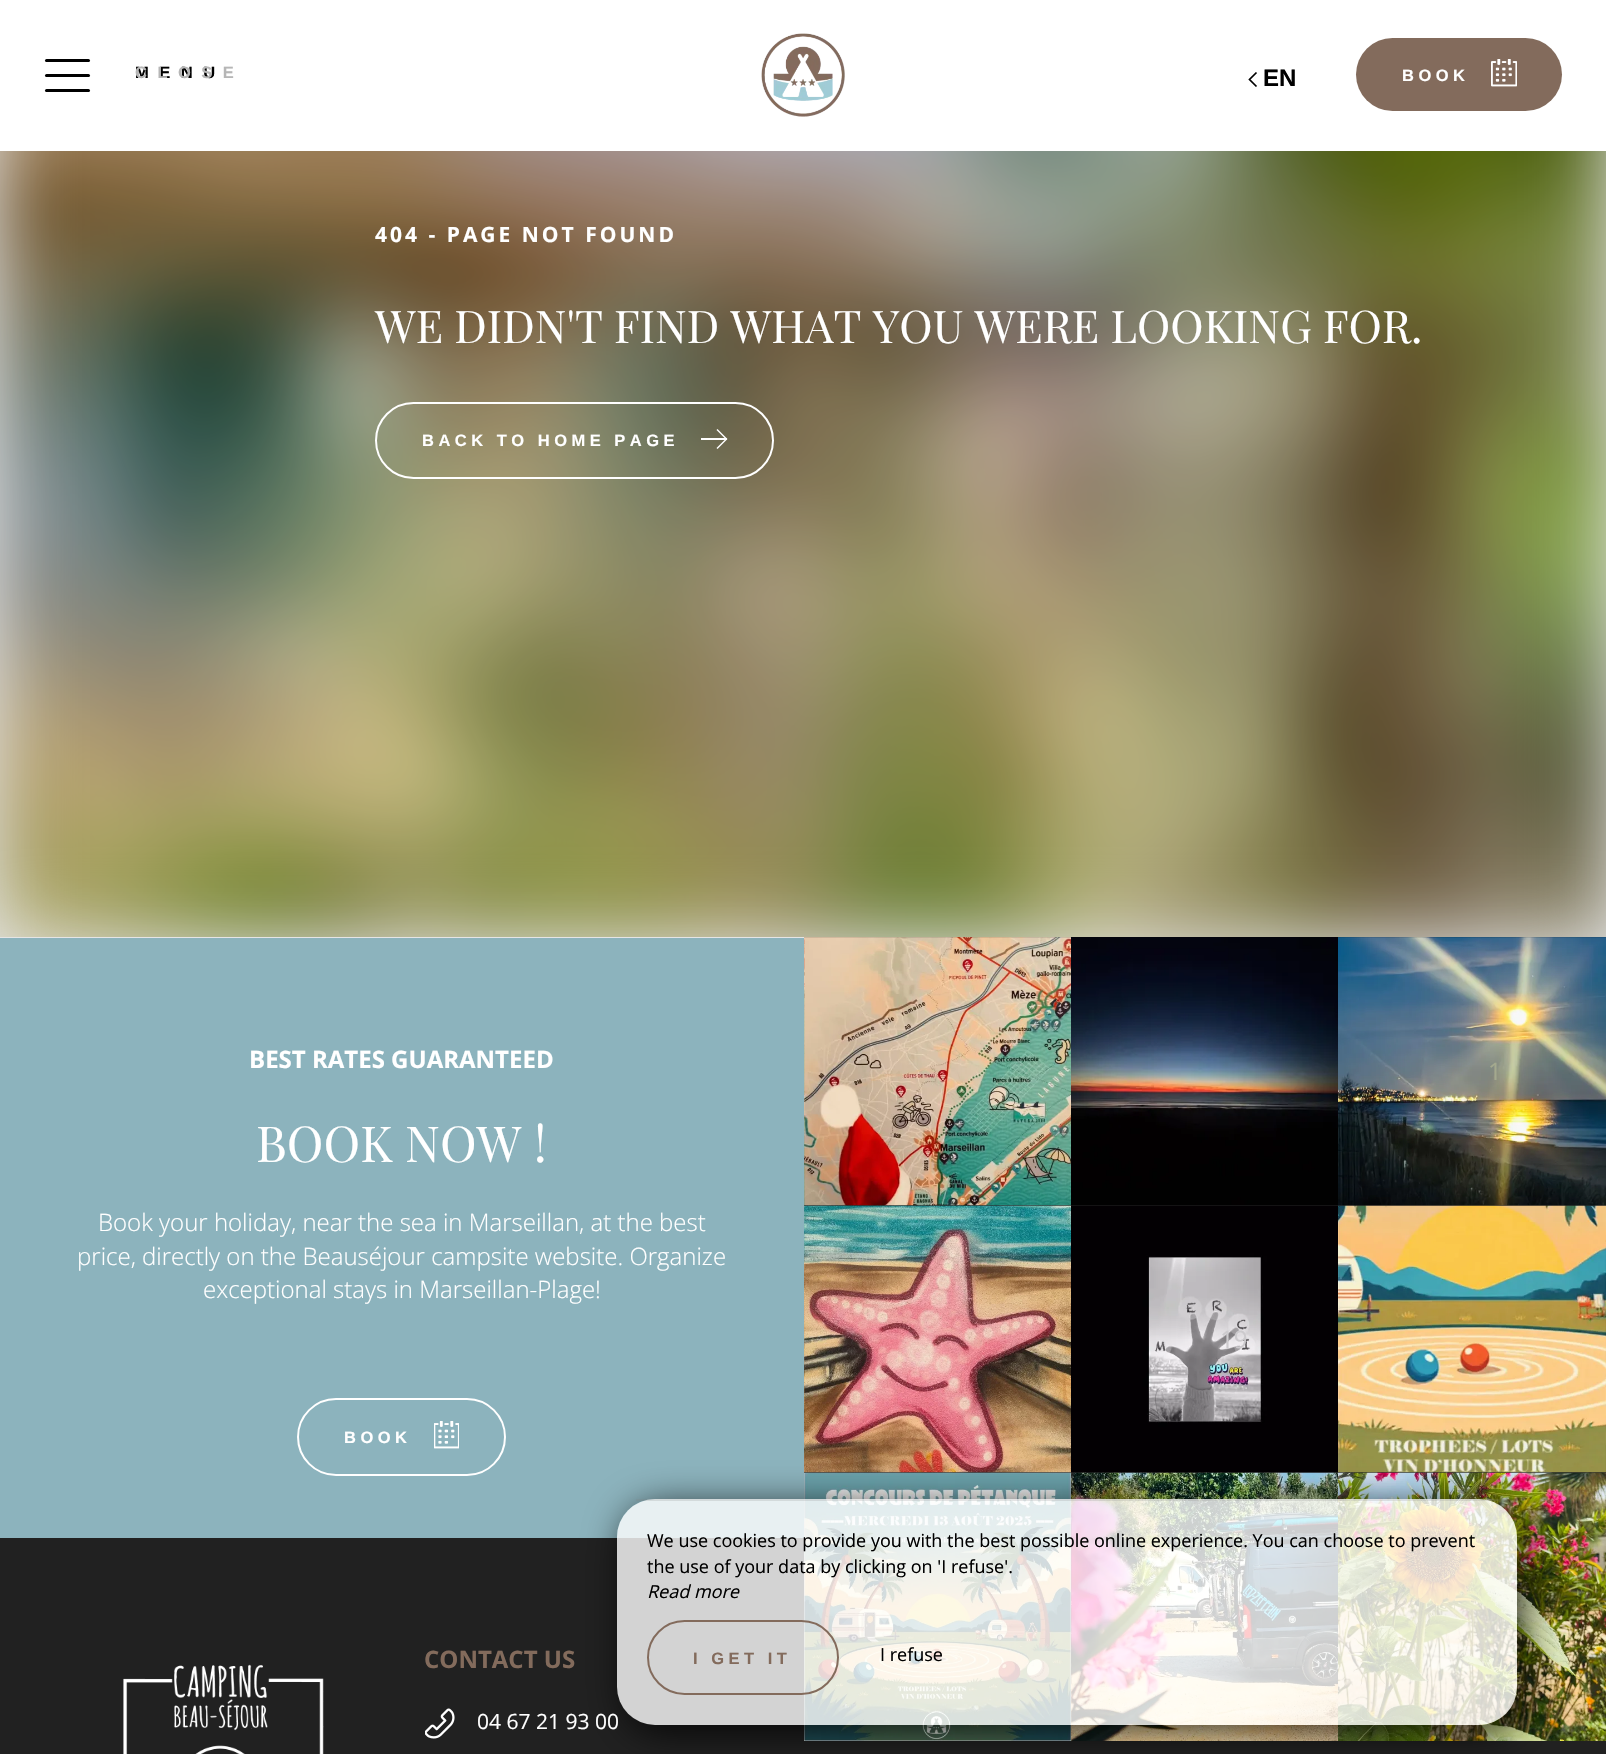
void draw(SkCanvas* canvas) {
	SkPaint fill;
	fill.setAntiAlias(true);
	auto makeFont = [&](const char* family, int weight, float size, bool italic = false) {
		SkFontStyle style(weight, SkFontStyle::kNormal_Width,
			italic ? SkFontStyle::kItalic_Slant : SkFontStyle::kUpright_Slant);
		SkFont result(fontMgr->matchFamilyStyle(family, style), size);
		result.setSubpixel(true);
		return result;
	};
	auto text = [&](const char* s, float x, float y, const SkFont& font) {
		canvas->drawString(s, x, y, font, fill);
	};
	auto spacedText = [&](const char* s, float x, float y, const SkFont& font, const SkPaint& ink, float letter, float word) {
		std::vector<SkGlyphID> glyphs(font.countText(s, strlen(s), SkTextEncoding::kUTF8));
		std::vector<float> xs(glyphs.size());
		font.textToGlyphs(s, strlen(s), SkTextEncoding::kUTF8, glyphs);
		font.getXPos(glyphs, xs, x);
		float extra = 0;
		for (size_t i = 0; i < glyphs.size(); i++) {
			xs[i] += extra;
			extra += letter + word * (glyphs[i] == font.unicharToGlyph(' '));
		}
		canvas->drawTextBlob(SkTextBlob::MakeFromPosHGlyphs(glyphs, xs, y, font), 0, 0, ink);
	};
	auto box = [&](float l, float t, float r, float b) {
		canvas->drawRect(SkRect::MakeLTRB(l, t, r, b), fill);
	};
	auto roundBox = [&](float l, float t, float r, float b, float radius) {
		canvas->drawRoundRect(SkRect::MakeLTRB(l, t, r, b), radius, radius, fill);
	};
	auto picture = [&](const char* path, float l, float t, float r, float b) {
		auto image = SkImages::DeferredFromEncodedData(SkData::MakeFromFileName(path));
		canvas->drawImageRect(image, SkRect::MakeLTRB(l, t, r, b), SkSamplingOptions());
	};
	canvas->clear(0xFFFFFFFF);
	fill.setColor(0xFF000000);
	roundBox(45, 59, 90, 62, 1.5f);
	roundBox(45, 74, 90, 77, 1.5f);
	roundBox(45, 89, 90, 92, 1.5f);
	picture("image0.png", 761, 33, 845, 117);
	fill.setStyle(SkPaint::kStroke_Style);
	fill.setStrokeWidth(1.7f);
	canvas->drawPath(SkPathBuilder().moveTo(1256.5f, 72.5f).lineTo(1249.5f, 79.5f).lineTo(1256.5f, 86.5f).detach(), fill);
	fill.setStyle(SkPaint::kFill_Style);
	fill.setColor(0xFF836B5C);
	roundBox(1356, 38, 1562, 111, 36.5f);
	picture("image1.png", 1491, 59, 1517, 87);
	picture("image2.png", 0, 151, 1606, 937);
	fill.setColor(0xFF212121);
	box(0, 1205, 1606, 1754);
	picture("image6.png", 804, 937, 1071, 1206);
	picture("image7.png", 1071, 937, 1338, 1206);
	picture("image8.png", 1338, 937, 1606, 1206);
	fill.setColor(0x1A000000);
	box(0, 151, 1606, 938);
	fill.setStyle(SkPaint::kStroke_Style);
	fill.setStrokeWidth(2);
	fill.setColor(0xFFFFFFFF);
	canvas->drawRoundRect(SkRect::MakeLTRB(376, 403, 773, 478), 37.5f, 37.5f, fill);
	fill.setStyle(SkPaint::kFill_Style);
	canvas->drawPath(SkPathBuilder().moveTo(716.5f, 430).lineTo(717.5f, 429).lineTo(727.5f, 439).lineTo(717.5f, 449).lineTo(716.5f, 448).lineTo(725.5f, 439).close().detach(), fill);
	box(701, 438, 727, 440);
	fill.setColor(0xFF8CB3BD);
	box(0, 938, 804, 1538);
	fill.setStyle(SkPaint::kStroke_Style);
	fill.setColor(0xFFFFFFFF);
	canvas->drawRoundRect(SkRect::MakeLTRB(298, 1399, 505, 1475), 38, 38, fill);
	picture("image3.png", 434, 1421, 459, 1449);
	picture("image4.png", 123, 1664, 324, 1754);
	picture("image5.png", 425, 1708, 455, 1739);
	picture("image9.png", 804, 1205, 1071, 1473);
	picture("image10.png", 1071, 1205, 1338, 1473);
	picture("image11.png", 1338, 1205, 1606, 1473);
	picture("image12.png", 804, 1472, 1071, 1741);
	picture("image13.png", 1071, 1472, 1338, 1741);
	picture("image14.png", 1338, 1472, 1606, 1741);
	canvas->save();
	canvas->clipPath(SkPathBuilder(SkPathFillType::kEvenOdd).moveTo(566, 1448).lineTo(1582, 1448).lineTo(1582, 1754).lineTo(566, 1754).close().moveTo(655, 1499).lineTo(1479, 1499).cubicTo(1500, 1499, 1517, 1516, 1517, 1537).lineTo(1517, 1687).cubicTo(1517, 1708, 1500, 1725, 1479, 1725).lineTo(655, 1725).cubicTo(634, 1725, 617, 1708, 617, 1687).lineTo(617, 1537).cubicTo(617, 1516, 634, 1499, 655, 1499).close().detach(), true);
	fill.setStyle(SkPaint::kFill_Style);
	fill.setColor(0xCC000000);
	fill.setMaskFilter(SkMaskFilter::MakeBlur(kNormal_SkBlurStyle, 19));
	canvas->drawRoundRect(SkRect::MakeLTRB(624, 1506, 1524, 1733), 38, 38, fill);
	fill.setMaskFilter(nullptr);
	canvas->restore();
	auto font1 = makeFont("Liberation Sans", 700, 16.5f);
	fill.setColor(0xFF000000);
	spacedText("MENU", 135, 78, font1, fill, 10.5f, 0);
	fill.setColor(0xFFB6B6B6);
	spacedText("CLOSE", 135, 78, font1, fill, 10.5f, 0);
	auto font2 = makeFont("Liberation Sans", 700, 24);
	fill.setColor(0xFF000000);
	text("EN", 1263, 86, font2);
	fill.setColor(0xFFFFFFFF);
	spacedText("BOOK", 1402, 81, font1, fill, 4.5f, 0);
	auto font3 = makeFont("Open Sans", 700, 21);
	spacedText("404 - PAGE NOT FOUND", 375, 242, font3, fill, 3, 0);
	auto font4 = makeFont("Playfair Display", 400, 45);
	text("WE DIDN'T FIND WHAT YOU WERE LOOKING FOR.", 375, 343, font4);
	spacedText("BACK TO HOME PAGE", 422, 446, font1, fill, 4.5f, 0);
	auto font5 = makeFont("Open Sans", 700, 24);
	text("BEST RATES GUARANTEED", 249, 1068, font5);
	auto font6 = makeFont("Playfair Display", 400, 49.5f);
	text("BOOK NOW !", 256, 1162, font6);
	auto font7 = makeFont("Open Sans", 300, 24);
	text("Book your holiday, near the sea in Marseillan, at the best", 98, 1231, font7);
	text("price, directly on the Beauséjour campsite website. Organize", 77, 1265, font7);
	text("exceptional stays in Marseillan-Plage!", 203, 1298, font7);
	spacedText("BOOK", 344, 1443, font1, fill, 4.5f, 0);
	fill.setColor(0xFF836B5C);
	text("CONTACT US", 424, 1668, font5);
	auto font8 = makeFont("Open Sans", 400, 21);
	fill.setColor(0xFFFFFFFF);
	text("04 67 21 93 00", 477, 1729, font8);
	auto font9 = makeFont("Open Sans", 400, 24);
	fill.setColor(0xFFA4A98E);
	text("1", 1488, 1080, font9);
	fill.setColor(0xFFCCCACD);
	text("19", 1220, 1348, font9);
	fill.setColor(0xCCFFFFFF);
	roundBox(617, 1499, 1517, 1725, 38);
	fill.setColor(0x33808080);
	box(636, 1499, 1499, 1501);
	auto font10 = makeFont("Open Sans", 400, 18);
	fill.setColor(0xFF000000);
	text("We use cookies to provide you with the best possible online experience. You can choose to prevent", 647, 1547, font10);
	text("the use of your data by clicking on 'I refuse'.", 647, 1573, font10);
	auto font11 = makeFont("Open Sans", 400, 18, true);
	text("Read more", 647, 1598, font11);
	fill.setStyle(SkPaint::kStroke_Style);
	fill.setColor(0xFF836B5C);
	canvas->drawRoundRect(SkRect::MakeLTRB(648, 1621, 838, 1694), 36.5f, 36.5f, fill);
	fill.setStyle(SkPaint::kFill_Style);
	spacedText("I GET IT", 693, 1664, font1, fill, 4.5f, 0);
	fill.setColor(0xFF000000);
	text("I refuse", 880, 1661, font10);
}
